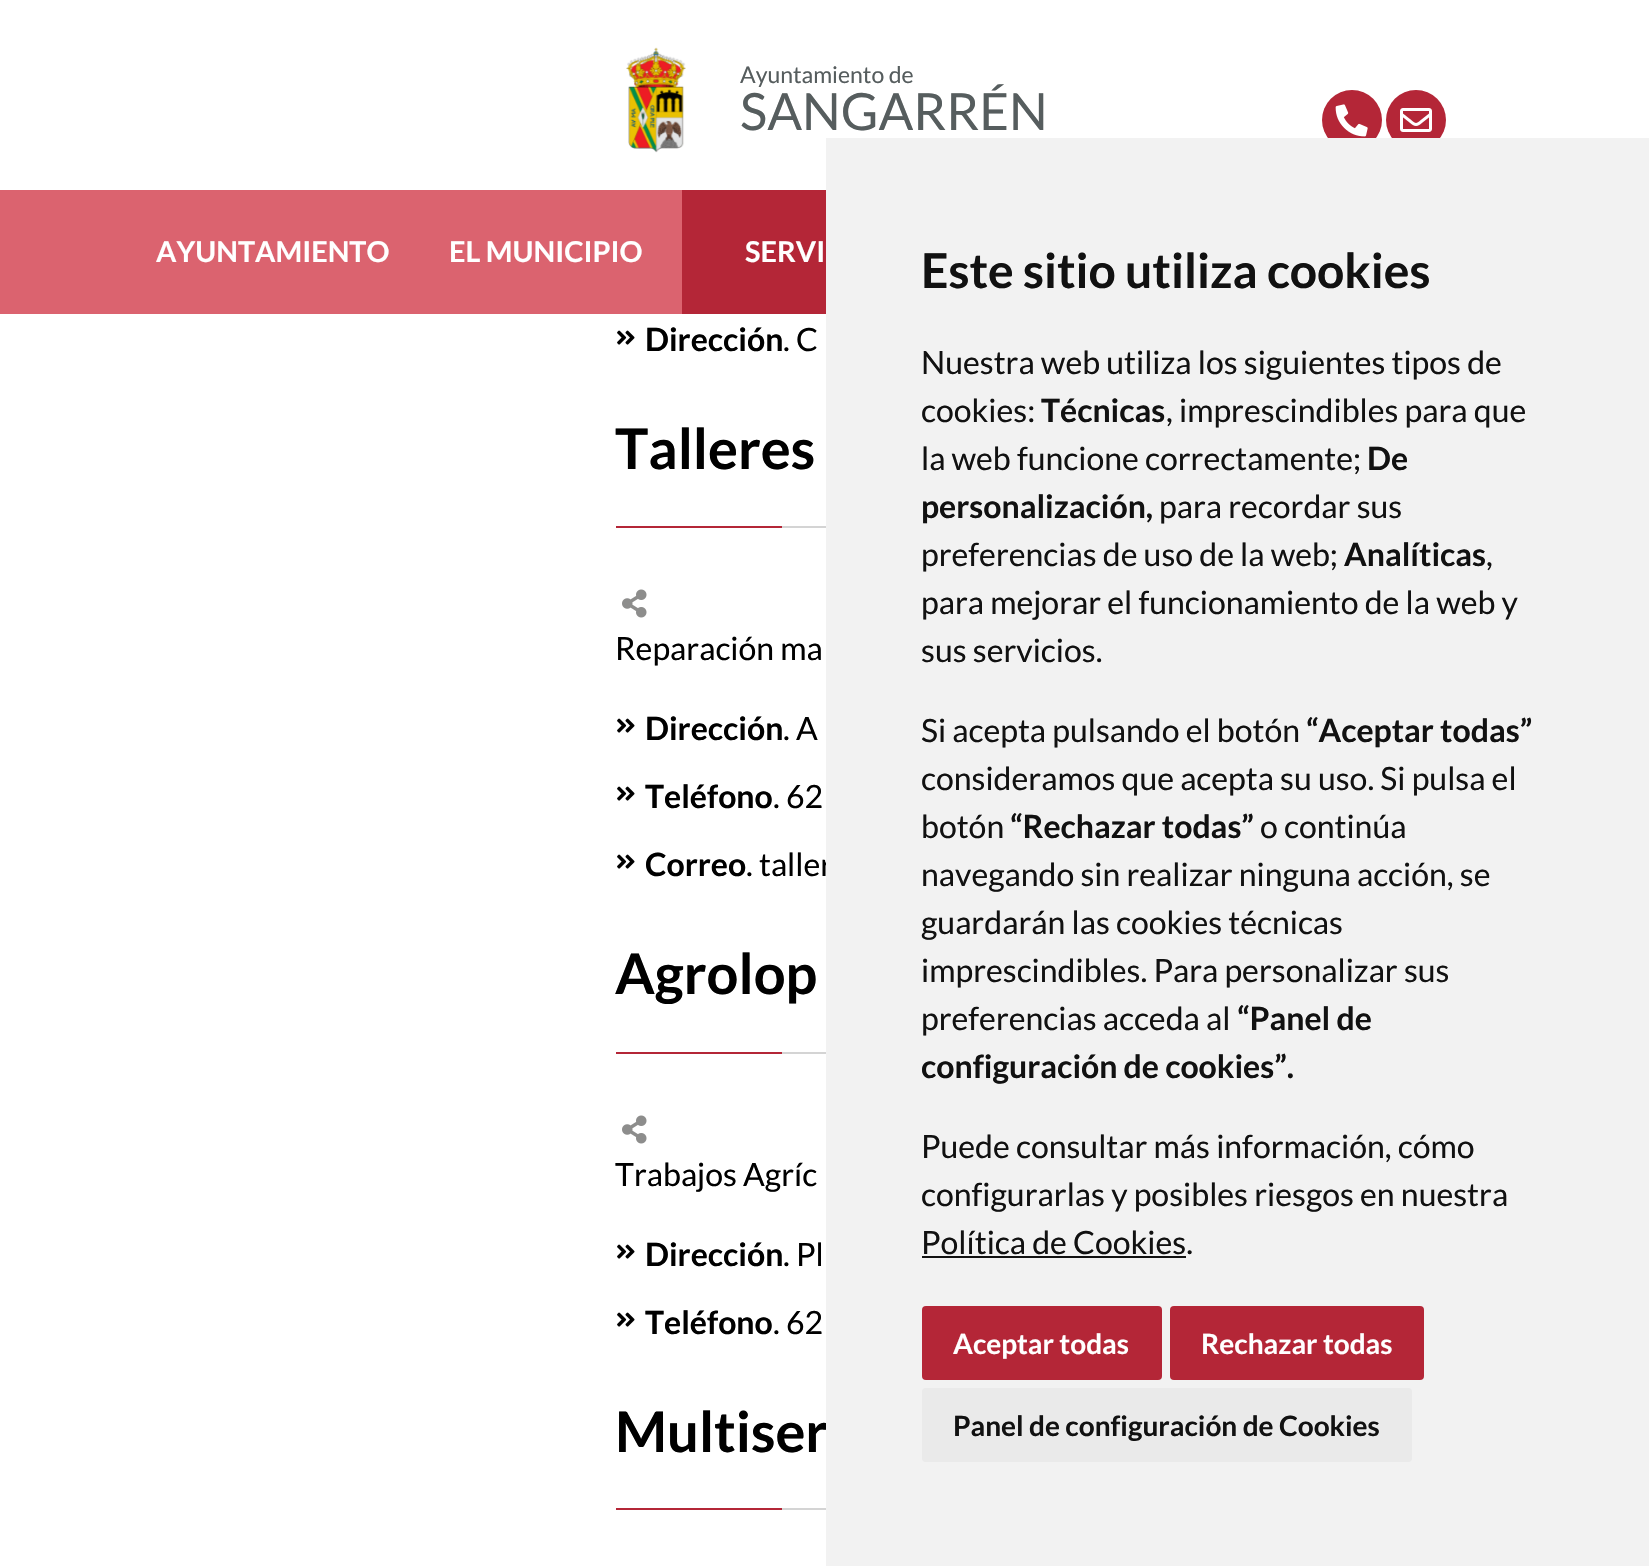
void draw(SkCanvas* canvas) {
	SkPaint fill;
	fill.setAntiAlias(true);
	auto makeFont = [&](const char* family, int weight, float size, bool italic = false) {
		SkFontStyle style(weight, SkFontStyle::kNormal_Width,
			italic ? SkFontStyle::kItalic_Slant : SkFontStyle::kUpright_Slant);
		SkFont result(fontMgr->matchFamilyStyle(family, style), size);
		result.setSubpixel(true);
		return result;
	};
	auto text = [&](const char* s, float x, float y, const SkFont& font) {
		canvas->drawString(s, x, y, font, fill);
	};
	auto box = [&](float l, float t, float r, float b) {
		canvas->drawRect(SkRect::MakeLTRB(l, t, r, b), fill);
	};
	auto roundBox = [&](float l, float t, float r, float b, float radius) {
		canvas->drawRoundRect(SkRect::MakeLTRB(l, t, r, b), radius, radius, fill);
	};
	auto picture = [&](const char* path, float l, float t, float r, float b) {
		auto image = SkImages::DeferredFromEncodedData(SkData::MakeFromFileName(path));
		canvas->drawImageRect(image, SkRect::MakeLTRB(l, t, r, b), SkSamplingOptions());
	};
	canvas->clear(0xFFFFFFFF);
	picture("image0.png", 626, 47, 686, 153);
	fill.setColor(0xFFB42637);
	canvas->drawCircle(1352, 120, 30, fill);
	picture("image1.png", 1335, 104, 1368, 137);
	canvas->drawCircle(1416, 120, 30, fill);
	picture("image2.png", 1400, 108, 1432, 132);
	fill.setColor(0xFFDB636F);
	box(0, 190, 682, 314);
	fill.setColor(0xFFB42637);
	box(682, 190, 826, 314);
	picture("image3.png", 617, 330, 635, 345);
	box(616, 526, 782, 528);
	fill.setColor(0xFFD4D4D4);
	box(782, 526, 826, 528);
	picture("image4.png", 622, 589, 647, 618);
	picture("image3.png", 617, 718, 635, 733);
	picture("image3.png", 617, 786, 635, 801);
	picture("image3.png", 617, 854, 635, 869);
	fill.setColor(0xFFB42637);
	box(616, 1052, 782, 1054);
	fill.setColor(0xFFD4D4D4);
	box(782, 1052, 826, 1054);
	picture("image4.png", 622, 1115, 647, 1144);
	picture("image3.png", 617, 1244, 635, 1259);
	picture("image3.png", 617, 1312, 635, 1327);
	fill.setColor(0xFFB42637);
	box(616, 1508, 782, 1510);
	fill.setColor(0xFFD4D4D4);
	box(782, 1508, 826, 1510);
	auto font1 = makeFont("Lato", 400, 23);
	fill.setColor(0xFF565D5E);
	text("Ayuntamiento de", 740, 83, font1);
	auto font2 = makeFont("Lato", 400, 51.25f);
	text("SANGARRÉN", 740, 130, font2);
	auto font3 = makeFont("Lato", 700, 28.75f);
	fill.setColor(0xFFFFFFFF);
	text("AYUNTAMIENTO", 156, 262, font3);
	text("EL MUNICIPIO", 449, 262, font3);
	text("SERVI", 745, 262, font3);
	auto font4 = makeFont("Lato", 700, 32);
	fill.setColor(0xFF000000);
	text("Dirección", 645, 351, font4);
	auto font5 = makeFont("Lato", 400, 32);
	text(". C", 783, 351, font5);
	auto font6 = makeFont("Lato", 700, 56);
	text("Talleres", 615, 469, font6);
	text("Reparación ma", 615, 660, font5);
	text("Dirección", 645, 740, font4);
	text(". A", 783, 740, font5);
	text("Teléfono", 645, 808, font4);
	text(". 62", 773, 808, font5);
	text("Correo", 645, 876, font4);
	text(". taller", 746, 876, font5);
	text("Agrolop", 615, 994, font6);
	text("Trabajos Agríc", 615, 1186, font5);
	text("Dirección", 645, 1266, font4);
	text(". Pl", 783, 1266, font5);
	text("Teléfono", 645, 1334, font4);
	text(". 62", 773, 1334, font5);
	text("Multiser", 615, 1452, font6);
	fill.setColor(0xFFF2F2F2);
	box(826, 138, 1649, 1566);
	auto font7 = makeFont("Lato", 700, 48);
	fill.setColor(0xFF111111);
	text("Este sitio utiliza cookies", 921, 288, font7);
	text("Nuestra web utiliza los siguientes tipos de", 921, 374, font5);
	text("cookies:", 921, 422, font5);
	text("Técnicas", 1041, 422, font4);
	text(", imprescindibles para que", 1166, 422, font5);
	text("la web funcione correctamente;", 921, 470, font5);
	text("De", 1367, 470, font4);
	text("personalización,", 921, 518, font4);
	text("para recordar sus", 1159, 518, font5);
	text("preferencias de uso de la web;", 921, 566, font5);
	text("Analíticas", 1344, 566, font4);
	text(",", 1486, 566, font5);
	text("para mejorar el funcionamiento de la web y", 921, 614, font5);
	text("sus servicios.", 921, 662, font5);
	text("Si acepta pulsando el botón", 921, 742, font5);
	text("“Aceptar todas”", 1306, 742, font4);
	text("consideramos que acepta su uso. Si pulsa el", 921, 790, font5);
	text("botón", 921, 838, font5);
	text("“Rechazar todas”", 1010, 838, font4);
	text("o continúa", 1260, 838, font5);
	text("navegando sin realizar ninguna acción, se", 921, 886, font5);
	text("guardarán las cookies técnicas", 921, 934, font5);
	text("imprescindibles. Para personalizar sus", 921, 982, font5);
	text("preferencias acceda al", 921, 1030, font5);
	text("“Panel de", 1237, 1030, font4);
	text("configuración de cookies”.", 921, 1078, font4);
	text("Puede consultar más información, cómo", 921, 1158, font5);
	text("configurarlas y posibles riesgos en nuestra", 921, 1206, font5);
	text("Política de Cookies.", 921, 1254, font5);
	box(922, 1256, 1186, 1258);
	fill.setColor(0xFFB42637);
	roundBox(922, 1306, 1162, 1380, 4);
	auto font8 = makeFont("Lato", 700, 28);
	fill.setColor(0xFFFFFFFF);
	text("Aceptar todas", 953, 1354, font8);
	fill.setColor(0xFFB42637);
	roundBox(1170, 1306, 1424, 1380, 4);
	fill.setColor(0xFFFFFFFF);
	text("Rechazar todas", 1201, 1354, font8);
	fill.setColor(0xFFEAEAEA);
	roundBox(922, 1388, 1412, 1462, 4);
	fill.setColor(0xFF111111);
	text("Panel de configuración de Cookies", 953, 1436, font8);
}
